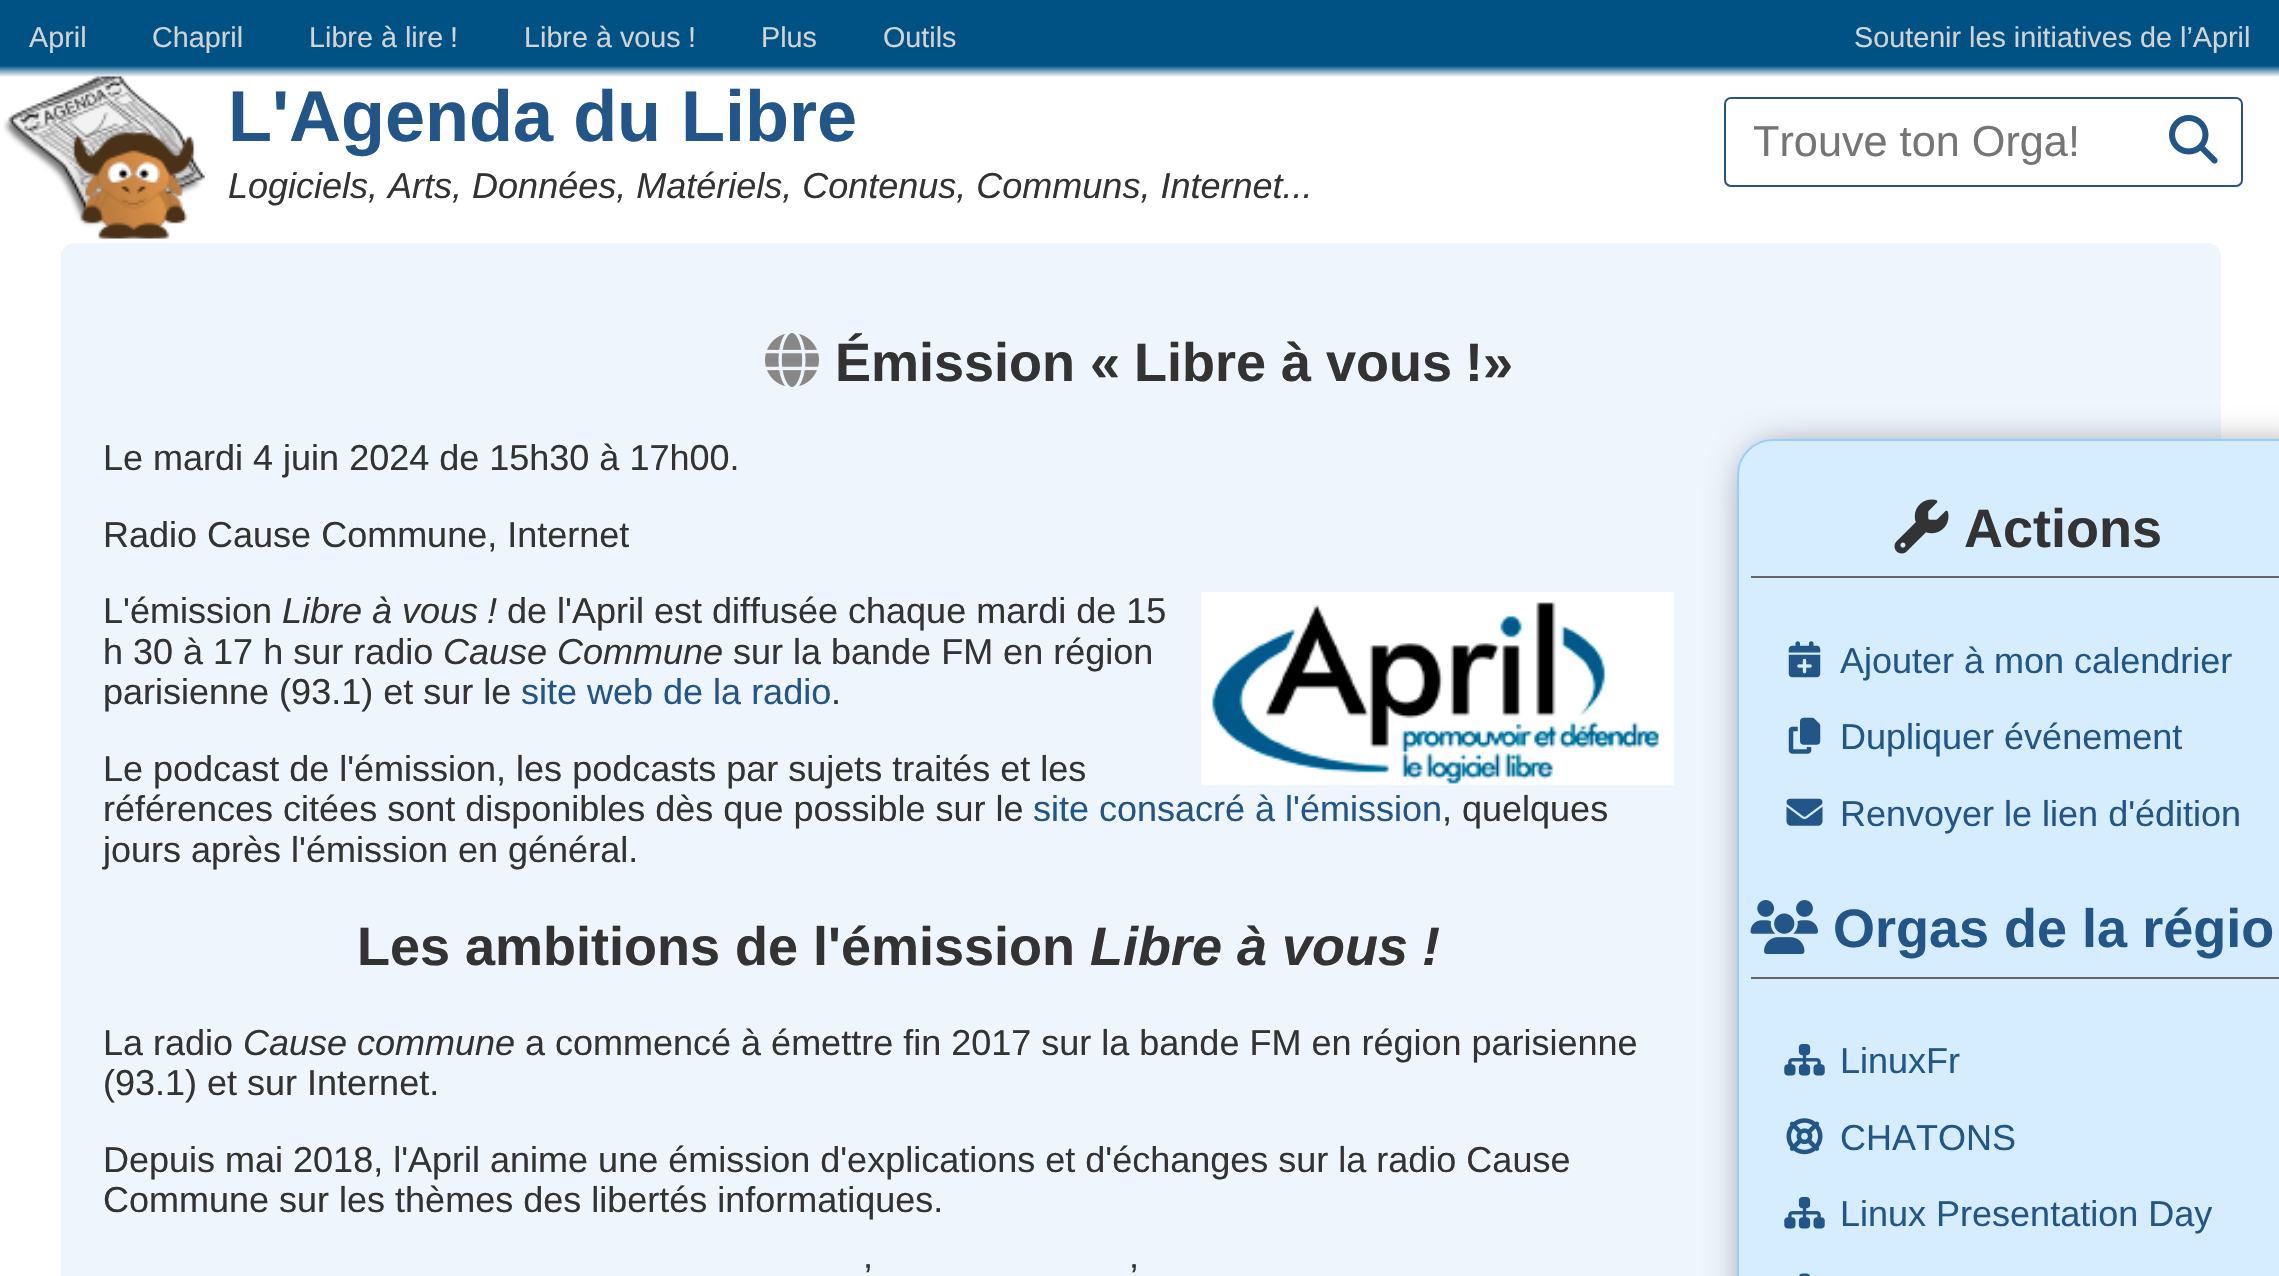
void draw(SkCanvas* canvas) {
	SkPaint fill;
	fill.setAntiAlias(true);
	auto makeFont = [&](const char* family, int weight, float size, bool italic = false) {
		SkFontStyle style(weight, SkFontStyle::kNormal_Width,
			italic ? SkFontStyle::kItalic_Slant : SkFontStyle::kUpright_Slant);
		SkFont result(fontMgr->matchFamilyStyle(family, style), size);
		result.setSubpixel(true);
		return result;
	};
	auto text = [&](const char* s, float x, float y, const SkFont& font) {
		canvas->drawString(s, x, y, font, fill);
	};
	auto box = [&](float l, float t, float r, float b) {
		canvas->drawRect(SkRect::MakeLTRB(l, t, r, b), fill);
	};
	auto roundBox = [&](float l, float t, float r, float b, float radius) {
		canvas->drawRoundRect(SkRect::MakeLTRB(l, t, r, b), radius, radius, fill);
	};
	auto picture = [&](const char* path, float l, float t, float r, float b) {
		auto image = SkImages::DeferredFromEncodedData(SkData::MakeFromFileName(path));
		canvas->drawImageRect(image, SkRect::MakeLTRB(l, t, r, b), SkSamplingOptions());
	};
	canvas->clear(0xFFFFFFFF);
	{
		const SkColor colors[] = {0xFF005184, 0xFFFFFFFF};
		const float stops[] = {0.85f, 1};
		const SkPoint ends[] = {{1140, 0}, {1140, 77}};
		fill.setShader(SkGradientShader::MakeLinear(ends, colors, stops, 2, SkTileMode::kClamp));
		fill.setAlpha(255);
	}
	box(0, 0, 2279, 77);
	picture("image0.png", 3, 76, 205, 239);
	fill.setStyle(SkPaint::kStroke_Style);
	fill.setStrokeWidth(2);
	fill.setShader(nullptr);
	fill.setColor(0xFF225588);
	canvas->drawRoundRect(SkRect::MakeLTRB(1725, 98, 2242, 186), 6, 6, fill);
	picture("image1.png", 2169, 115, 2218, 164);
	fill.setStyle(SkPaint::kFill_Style);
	fill.setColor(0xFFEEF5FD);
	roundBox(61, 243, 2221, 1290, 14);
	picture("image2.png", 765, 333, 819, 387);
	fill.setColor(0xFF808080);
	fill.setMaskFilter(SkMaskFilter::MakeBlur(kNormal_SkBlurStyle, 18));
	canvas->drawRoundRect(SkRect::MakeLTRB(1746, 448, 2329, 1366), 36, 36, fill);
	fill.setMaskFilter(nullptr);
	fill.setColor(0xFFD6ECFF);
	canvas->drawRoundRect(SkRect::MakeLTRB(1738, 440, 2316, 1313), 35, 35, fill);
	fill.setStyle(SkPaint::kStroke_Style);
	fill.setColor(0xFF96CFFF);
	canvas->drawRoundRect(SkRect::MakeLTRB(1738, 440, 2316, 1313), 35, 35, fill);
	fill.setStyle(SkPaint::kFill_Style);
	fill.setColor(0xFF666666);
	box(1751, 576, 2279, 578);
	picture("image3.png", 1894, 499, 1949, 554);
	picture("image4.png", 1788, 641, 1821, 678);
	picture("image5.png", 1788, 717, 1821, 754);
	picture("image6.png", 1786, 798, 1823, 826);
	box(1751, 977, 2279, 979);
	picture("image7.png", 1750, 900, 1818, 954);
	picture("image8.png", 1784, 1044, 1825, 1076);
	picture("image9.png", 1786, 1118, 1823, 1155);
	picture("image8.png", 1784, 1197, 1825, 1229);
	picture("image10.png", 1799, 1273, 1810, 1276);
	picture("image11.png", 1201, 591, 1674, 786);
	auto font1 = makeFont("Liberation Sans", 400, 28.75f);
	fill.setColor(0xFFD3D3D3);
	text("April", 29, 47, font1);
	text("Chapril", 152, 47, font1);
	text("Libre à lire", 309, 47, font1);
	text("!", 450, 47, font1);
	text("Libre à vous", 524, 47, font1);
	text("!", 688, 47, font1);
	text("Plus", 761, 47, font1);
	text("Outils", 883, 47, font1);
	text("Soutenir les initiatives de l’April", 1854, 47, font1);
	auto font2 = makeFont("Liberation Sans", 700, 72);
	fill.setColor(0xFF225588);
	text("L'Agenda du Libre", 228, 141, font2);
	auto font3 = makeFont("Liberation Sans", 400, 43.25f);
	fill.setColor(0xFF757575);
	text("Trouve ton Orga!", 1753, 156, font3);
	auto font4 = makeFont("Liberation Sans", 400, 36, true);
	fill.setColor(0xFF333333);
	text("Logiciels, Arts, Données, Matériels, Contenus, Communs, Internet...", 228, 198, font4);
	auto font5 = makeFont("Liberation Sans", 700, 54);
	text("Émission «", 835, 381, font5);
	text("Libre à vous", 1134, 381, font5);
	text("!»", 1465, 381, font5);
	auto font6 = makeFont("Liberation Sans", 400, 36);
	text("Le mardi 4 juin 2024 de 15h30 à 17h00.", 103, 470, font6);
	text("Radio Cause Commune, Internet", 103, 547, font6);
	text("Actions", 1964, 547, font5);
	fill.setColor(0xFF225588);
	text("Ajouter à mon calendrier", 1840, 673, font6);
	text("Dupliquer événement", 1840, 749, font6);
	text("Renvoyer le lien d'édition", 1840, 826, font6);
	text("Orgas de la régio", 1833, 947, font5);
	text("LinuxFr", 1840, 1073, font6);
	text("CHATONS", 1840, 1150, font6);
	text("Linux Presentation Day", 1840, 1226, font6);
	fill.setColor(0xFF333333);
	text("L'émission", 103, 623, font6);
	text("Libre à vous", 282, 623, font4);
	text("!", 487, 623, font4);
	text("de l'April est diffusée chaque mardi de 15", 507, 623, font6);
	text("h 30 à 17 h sur radio", 103, 664, font6);
	text("Cause Commune", 443, 664, font4);
	text("sur la bande FM en région", 733, 664, font6);
	text("parisienne (93.1) et sur le", 103, 704, font6);
	fill.setColor(0xFF225588);
	text("site web de la radio", 521, 704, font6);
	fill.setColor(0xFF333333);
	text(".", 831, 704, font6);
	text("Le podcast de l'émission, les podcasts par sujets traités et les", 103, 781, font6);
	text("références citées sont disponibles dès que possible sur le", 103, 821, font6);
	fill.setColor(0xFF225588);
	text("site consacré à l'émission", 1033, 821, font6);
	fill.setColor(0xFF333333);
	text(", quelques", 1442, 821, font6);
	text("jours après l'émission en général.", 103, 862, font6);
	text("Les ambitions de l'émission", 357, 965, font5);
	auto font7 = makeFont("Liberation Sans", 700, 54, true);
	text("Libre à vous", 1090, 965, font7);
	text("!", 1422, 965, font7);
	text("La radio", 103, 1055, font6);
	text("Cause commune", 243, 1055, font4);
	text("a commencé à émettre fin 2017 sur la bande FM en région parisienne", 525, 1055, font6);
	text("(93.1) et sur Internet.", 103, 1095, font6);
	text("Depuis mai 2018, l'April anime une émission d'explications et d'échanges sur la radio Cause", 103, 1172, font6);
	text("Commune sur les thèmes des libertés informatiques.", 103, 1212, font6);
	text("’", 864, 1289, font6);
	text("’", 1130, 1289, font6);
}
